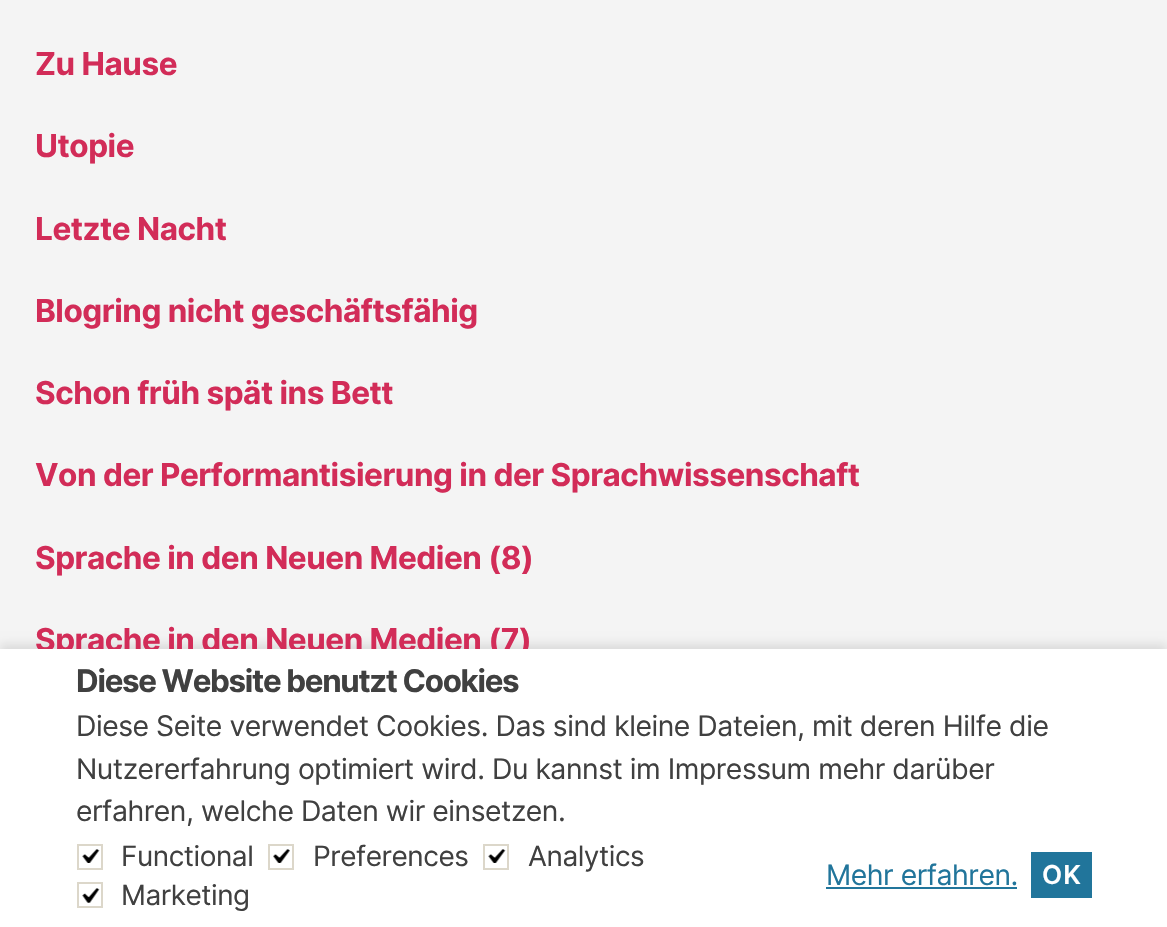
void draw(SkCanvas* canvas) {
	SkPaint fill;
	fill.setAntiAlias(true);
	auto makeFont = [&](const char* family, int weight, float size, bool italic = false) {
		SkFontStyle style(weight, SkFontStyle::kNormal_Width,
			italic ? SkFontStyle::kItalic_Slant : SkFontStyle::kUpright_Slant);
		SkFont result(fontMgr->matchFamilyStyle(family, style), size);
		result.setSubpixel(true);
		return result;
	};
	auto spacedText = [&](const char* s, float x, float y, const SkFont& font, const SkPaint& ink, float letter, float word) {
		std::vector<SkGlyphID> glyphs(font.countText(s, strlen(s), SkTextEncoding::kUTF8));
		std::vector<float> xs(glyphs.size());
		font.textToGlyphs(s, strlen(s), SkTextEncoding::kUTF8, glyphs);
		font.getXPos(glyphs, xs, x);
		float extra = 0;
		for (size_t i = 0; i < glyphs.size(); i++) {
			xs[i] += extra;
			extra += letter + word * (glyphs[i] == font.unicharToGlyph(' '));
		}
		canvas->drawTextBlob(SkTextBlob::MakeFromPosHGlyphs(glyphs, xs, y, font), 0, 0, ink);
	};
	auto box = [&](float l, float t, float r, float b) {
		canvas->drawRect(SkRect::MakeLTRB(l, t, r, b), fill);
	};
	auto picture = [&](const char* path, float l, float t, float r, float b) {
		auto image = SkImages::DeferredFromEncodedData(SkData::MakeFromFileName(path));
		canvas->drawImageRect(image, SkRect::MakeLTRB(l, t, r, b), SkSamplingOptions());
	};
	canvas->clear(0xFFF4F4F4);
	fill.setColor(0x1A000000);
	fill.setMaskFilter(SkMaskFilter::MakeBlur(kNormal_SkBlurStyle, 4.5f));
	canvas->drawRect(SkRect::MakeLTRB(0, 644, 1167, 922), fill);
	fill.setMaskFilter(nullptr);
	auto font1 = makeFont("Inter", 700, 31.5f);
	fill.setColor(0xFFD22C58);
	spacedText("Zu Hause", 35, 75, font1, fill, -0.47f, 0);
	spacedText("Utopie", 35, 157, font1, fill, -0.47f, 0);
	spacedText("Letzte Nacht", 35, 240, font1, fill, -0.47f, 0);
	spacedText("Blogring nicht geschäftsfähig", 35, 322, font1, fill, -0.47f, 0);
	spacedText("Schon früh spät ins Bett", 35, 404, font1, fill, -0.47f, 0);
	spacedText("Von der Performantisierung in der Sprachwissenschaft", 35, 486, font1, fill, -0.47f, 0);
	spacedText("Sprache in den Neuen Medien (8)", 35, 569, font1, fill, -0.47f, 0);
	spacedText("Sprache in den Neuen Medien (7)", 35, 651, font1, fill, -0.47f, 0);
	fill.setColor(0xFFFFFFFF);
	box(0, 649, 1167, 927);
	auto font2 = makeFont("Inter", 700, 31.25f);
	fill.setColor(0xFF404040);
	spacedText("Diese Website benutzt Cookies", 76, 692, font2, fill, -1.3f, 0);
	auto font3 = makeFont("Inter", 400, 28.35f);
	spacedText("Diese Seite verwendet Cookies. Das sind kleine Dateien, mit deren Hilfe die", 76, 736, font3, fill, -0.47f, 0);
	spacedText("Nutzererfahrung optimiert wird. Du kannst im Impressum mehr darüber", 76, 779, font3, fill, -0.47f, 0);
	spacedText("erfahren, welche Daten wir einsetzen.", 76, 821, font3, fill, -0.47f, 0);
	fill.setStyle(SkPaint::kStroke_Style);
	fill.setStrokeWidth(2);
	fill.setColor(0xFFDCD7CA);
	canvas->drawRect(SkRect::MakeLTRB(78, 845, 102, 869), fill);
	picture("image0.png", 82, 849, 100, 863);
	auto font4 = makeFont("Inter", 400, 28);
	fill.setStyle(SkPaint::kFill_Style);
	fill.setColor(0xFF404040);
	spacedText("Functional", 121, 866, font4, fill, -0.47f, 0);
	fill.setStyle(SkPaint::kStroke_Style);
	fill.setColor(0xFFDCD7CA);
	canvas->drawRect(SkRect::MakeLTRB(269, 845, 293, 869), fill);
	picture("image1.png", 273, 849, 290, 863);
	fill.setStyle(SkPaint::kFill_Style);
	fill.setColor(0xFF404040);
	spacedText("Preferences", 313, 866, font4, fill, -0.47f, 0);
	fill.setStyle(SkPaint::kStroke_Style);
	fill.setColor(0xFFDCD7CA);
	canvas->drawRect(SkRect::MakeLTRB(484, 845, 508, 869), fill);
	picture("image0.png", 488, 849, 506, 863);
	fill.setStyle(SkPaint::kFill_Style);
	fill.setColor(0xFF404040);
	spacedText("Analytics", 528, 866, font4, fill, -0.47f, 0);
	fill.setStyle(SkPaint::kStroke_Style);
	fill.setColor(0xFFDCD7CA);
	canvas->drawRect(SkRect::MakeLTRB(78, 883, 102, 907), fill);
	picture("image2.png", 82, 888, 100, 903);
	fill.setStyle(SkPaint::kFill_Style);
	fill.setColor(0xFF404040);
	spacedText("Marketing", 121, 905, font4, fill, -0.47f, 0);
	fill.setColor(0xFF21759B);
	spacedText("Mehr erfahren.", 826, 885, font3, fill, -0.47f, 0);
	box(826, 887, 1017, 889);
	box(1031, 852, 1092, 898);
	auto font5 = makeFont("Inter", 600, 26);
	fill.setColor(0xFFFFFFFF);
	spacedText("OK", 1042, 884, font5, fill, 1, 0);
}
